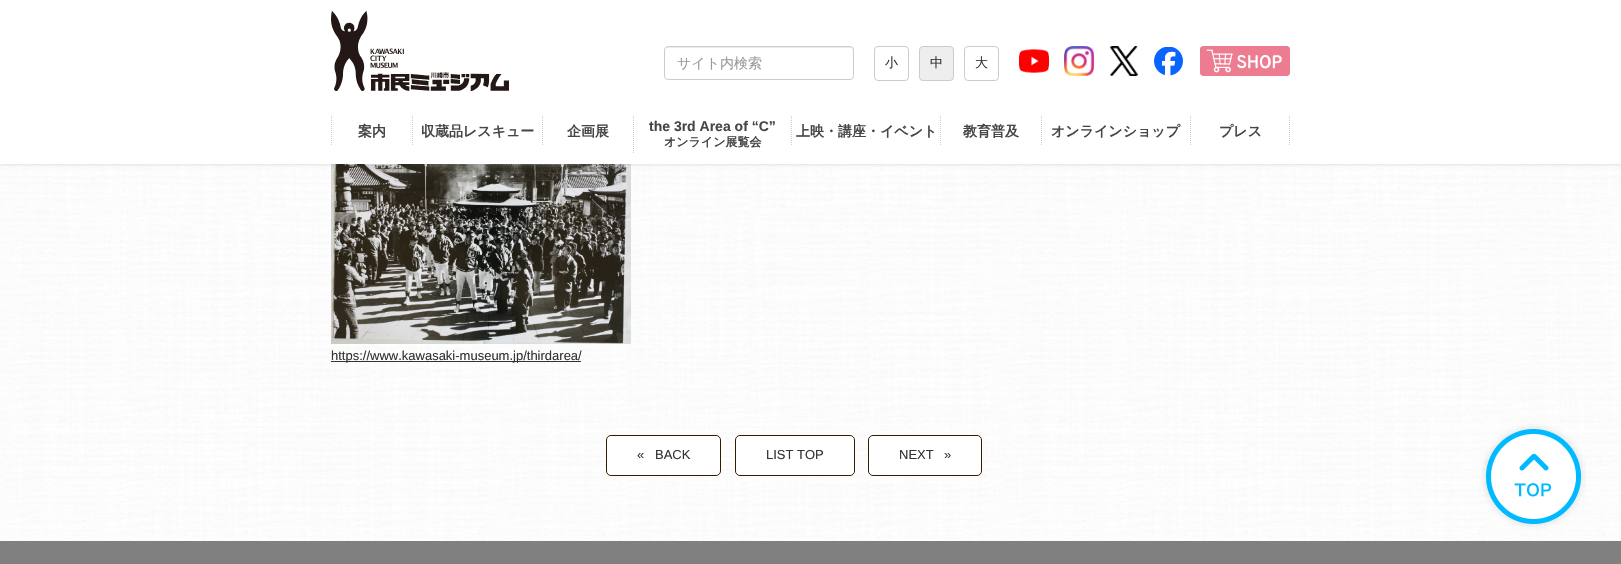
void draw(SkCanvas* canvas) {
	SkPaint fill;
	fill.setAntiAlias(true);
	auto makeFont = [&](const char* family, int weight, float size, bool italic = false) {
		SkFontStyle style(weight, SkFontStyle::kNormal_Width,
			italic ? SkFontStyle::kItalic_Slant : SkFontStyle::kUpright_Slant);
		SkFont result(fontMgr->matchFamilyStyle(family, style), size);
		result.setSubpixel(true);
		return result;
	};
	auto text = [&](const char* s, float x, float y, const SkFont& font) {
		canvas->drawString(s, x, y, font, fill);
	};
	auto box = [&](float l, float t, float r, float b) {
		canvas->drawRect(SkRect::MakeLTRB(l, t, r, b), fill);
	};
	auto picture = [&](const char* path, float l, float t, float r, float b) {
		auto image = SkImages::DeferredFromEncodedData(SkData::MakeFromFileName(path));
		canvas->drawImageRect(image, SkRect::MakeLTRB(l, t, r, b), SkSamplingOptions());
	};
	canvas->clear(0xFFFFFFFF);
	picture("image6.png", 0, 164, 1621, 541);
	picture("image7.png", 331, 164, 631, 344);
	fill.setColor(0x1A000000);
	fill.setMaskFilter(SkMaskFilter::MakeBlur(kNormal_SkBlurStyle, 1.5f));
	canvas->drawRect(SkRect::MakeLTRB(0, 1, 1621, 165), fill);
	fill.setMaskFilter(nullptr);
	fill.setColor(0xFFFFFFFF);
	box(0, 0, 1621, 164);
	picture("image0.png", 331, 11, 509, 91);
	fill.setColor(0xFFECECEC);
	canvas->drawPath(SkPathBuilder().moveTo(668, 48).lineTo(850, 48).cubicTo(852, 48, 853, 49, 853, 51).cubicTo(853, 49, 852, 47, 850, 47).lineTo(668, 47).cubicTo(666, 47, 665, 49, 665, 51).cubicTo(665, 49, 666, 48, 668, 48).close().detach(), fill);
	fill.setStyle(SkPaint::kStroke_Style);
	fill.setStrokeWidth(1);
	fill.setColor(0xFFCCCCCC);
	canvas->drawRoundRect(SkRect::MakeLTRB(664.5f, 46.5f, 853.5f, 79.5f), 3.5f, 3.5f, fill);
	canvas->drawRoundRect(SkRect::MakeLTRB(874.5f, 46.5f, 908.5f, 80.5f), 3.5f, 3.5f, fill);
	fill.setStyle(SkPaint::kFill_Style);
	fill.setColor(0xFFEEEEEE);
	canvas->drawRoundRect(SkRect::MakeLTRB(919.5f, 46.5f, 953.5f, 80.5f), 3.5f, 3.5f, fill);
	fill.setStyle(SkPaint::kStroke_Style);
	fill.setColor(0xFFCCCCCC);
	canvas->drawRoundRect(SkRect::MakeLTRB(919.5f, 46.5f, 953.5f, 80.5f), 3.5f, 3.5f, fill);
	canvas->drawRoundRect(SkRect::MakeLTRB(964.5f, 46.5f, 998.5f, 80.5f), 3.5f, 3.5f, fill);
	picture("image1.png", 1019, 49, 1049, 73);
	picture("image2.png", 1064, 46, 1094, 76);
	picture("image3.png", 1110, 46, 1139, 76);
	picture("image4.png", 1154, 47, 1183, 76);
	picture("image5.png", 1200, 46, 1290, 76);
	fill.setPathEffect(SkDashPathEffect::Make({{1, 1}}, 0));
	canvas->drawPath(SkPathBuilder().moveTo(331.5f, 116).lineTo(331.5f, 146).detach(), fill);
	fill.setPathEffect(nullptr);
	fill.setPathEffect(SkDashPathEffect::Make({{1, 1}}, 0));
	canvas->drawPath(SkPathBuilder().moveTo(412.5f, 116).lineTo(412.5f, 146).detach(), fill);
	fill.setPathEffect(nullptr);
	fill.setPathEffect(SkDashPathEffect::Make({{1, 1}}, 0));
	canvas->drawPath(SkPathBuilder().moveTo(542.5f, 116).lineTo(542.5f, 146).detach(), fill);
	fill.setPathEffect(nullptr);
	fill.setPathEffect(SkDashPathEffect::Make({{1, 1}}, 0));
	canvas->drawPath(SkPathBuilder().moveTo(633.5f, 116).lineTo(633.5f, 153).detach(), fill);
	fill.setPathEffect(nullptr);
	fill.setPathEffect(SkDashPathEffect::Make({{1, 1}}, 0));
	canvas->drawPath(SkPathBuilder().moveTo(791.5f, 116).lineTo(791.5f, 146).detach(), fill);
	fill.setPathEffect(nullptr);
	fill.setPathEffect(SkDashPathEffect::Make({{1, 1}}, 0));
	canvas->drawPath(SkPathBuilder().moveTo(940.5f, 116).lineTo(940.5f, 146).detach(), fill);
	fill.setPathEffect(nullptr);
	fill.setPathEffect(SkDashPathEffect::Make({{1, 1}}, 0));
	canvas->drawPath(SkPathBuilder().moveTo(1041.5f, 116).lineTo(1041.5f, 146).detach(), fill);
	fill.setPathEffect(nullptr);
	fill.setPathEffect(SkDashPathEffect::Make({{1, 1}}, 0));
	canvas->drawPath(SkPathBuilder().moveTo(1289.5f, 116).lineTo(1289.5f, 146).detach(), fill);
	fill.setPathEffect(nullptr);
	fill.setPathEffect(SkDashPathEffect::Make({{1, 1}}, 0));
	canvas->drawPath(SkPathBuilder().moveTo(1190.5f, 116).lineTo(1190.5f, 146).detach(), fill);
	fill.setPathEffect(nullptr);
	fill.setStyle(SkPaint::kFill_Style);
	fill.setColor(0xFF333333);
	box(331, 361, 581, 362);
	fill.setColor(0xFFFFFFFF);
	canvas->drawRoundRect(SkRect::MakeLTRB(606.5f, 435.5f, 720.5f, 475.5f), 4.5f, 4.5f, fill);
	fill.setStyle(SkPaint::kStroke_Style);
	fill.setColor(0xFF331D00);
	canvas->drawRoundRect(SkRect::MakeLTRB(606.5f, 435.5f, 720.5f, 475.5f), 4.5f, 4.5f, fill);
	fill.setStyle(SkPaint::kFill_Style);
	fill.setColor(0xFFFFFFFF);
	canvas->drawRoundRect(SkRect::MakeLTRB(735.5f, 435.5f, 854.5f, 475.5f), 4.5f, 4.5f, fill);
	fill.setStyle(SkPaint::kStroke_Style);
	fill.setColor(0xFF331D00);
	canvas->drawRoundRect(SkRect::MakeLTRB(735.5f, 435.5f, 854.5f, 475.5f), 4.5f, 4.5f, fill);
	fill.setStyle(SkPaint::kFill_Style);
	fill.setColor(0xFFFFFFFF);
	canvas->drawRoundRect(SkRect::MakeLTRB(868.5f, 435.5f, 981.5f, 475.5f), 4.5f, 4.5f, fill);
	fill.setStyle(SkPaint::kStroke_Style);
	fill.setColor(0xFF331D00);
	canvas->drawRoundRect(SkRect::MakeLTRB(868.5f, 435.5f, 981.5f, 475.5f), 4.5f, 4.5f, fill);
	fill.setStyle(SkPaint::kFill_Style);
	fill.setColor(0xFF808080);
	box(0, 541, 1621, 564);
	picture("image8.png", 1481, 424, 1586, 529);
	auto font1 = makeFont("WenQuanYi Zen Hei", 500, 14);
	fill.setColor(0xFF999999);
	text("サイト内検索", 677, 68, font1);
	auto font2 = makeFont("WenQuanYi Zen Hei", 500, 13);
	fill.setColor(0xFF333333);
	text("小", 885, 67, font2);
	text("中", 930, 67, font2);
	text("大", 975, 67, font2);
	auto font3 = makeFont("WenQuanYi Zen Hei", 700, 14);
	fill.setColor(0xFF464646);
	text("案内", 358, 136, font3);
	text("収蔵品レスキュー", 421, 136, font3);
	text("企画展", 567, 136, font3);
	auto font4 = makeFont("Liberation Sans", 700, 14);
	text("the 3rd Area of “C”", 649, 131, font4);
	auto font5 = makeFont("WenQuanYi Zen Hei", 700, 12);
	text("オンライン展覧会", 664, 146, font5);
	text("上映・講座・イベント", 796, 136, font3);
	text("教育普及", 963, 136, font3);
	text("オンラインショップ", 1051, 136, font3);
	text("プレス", 1219, 136, font3);
	auto font6 = makeFont("Liberation Sans", 400, 13);
	fill.setColor(0xFF333333);
	text("https://www.kawasaki-museum.jp/thirdarea/", 331, 360, font6);
	text("«", 637, 459, font6);
	text("BACK", 655, 459, font6);
	text("LIST TOP", 766, 459, font6);
	text("NEXT", 899, 459, font6);
	text("»", 944, 459, font6);
}
